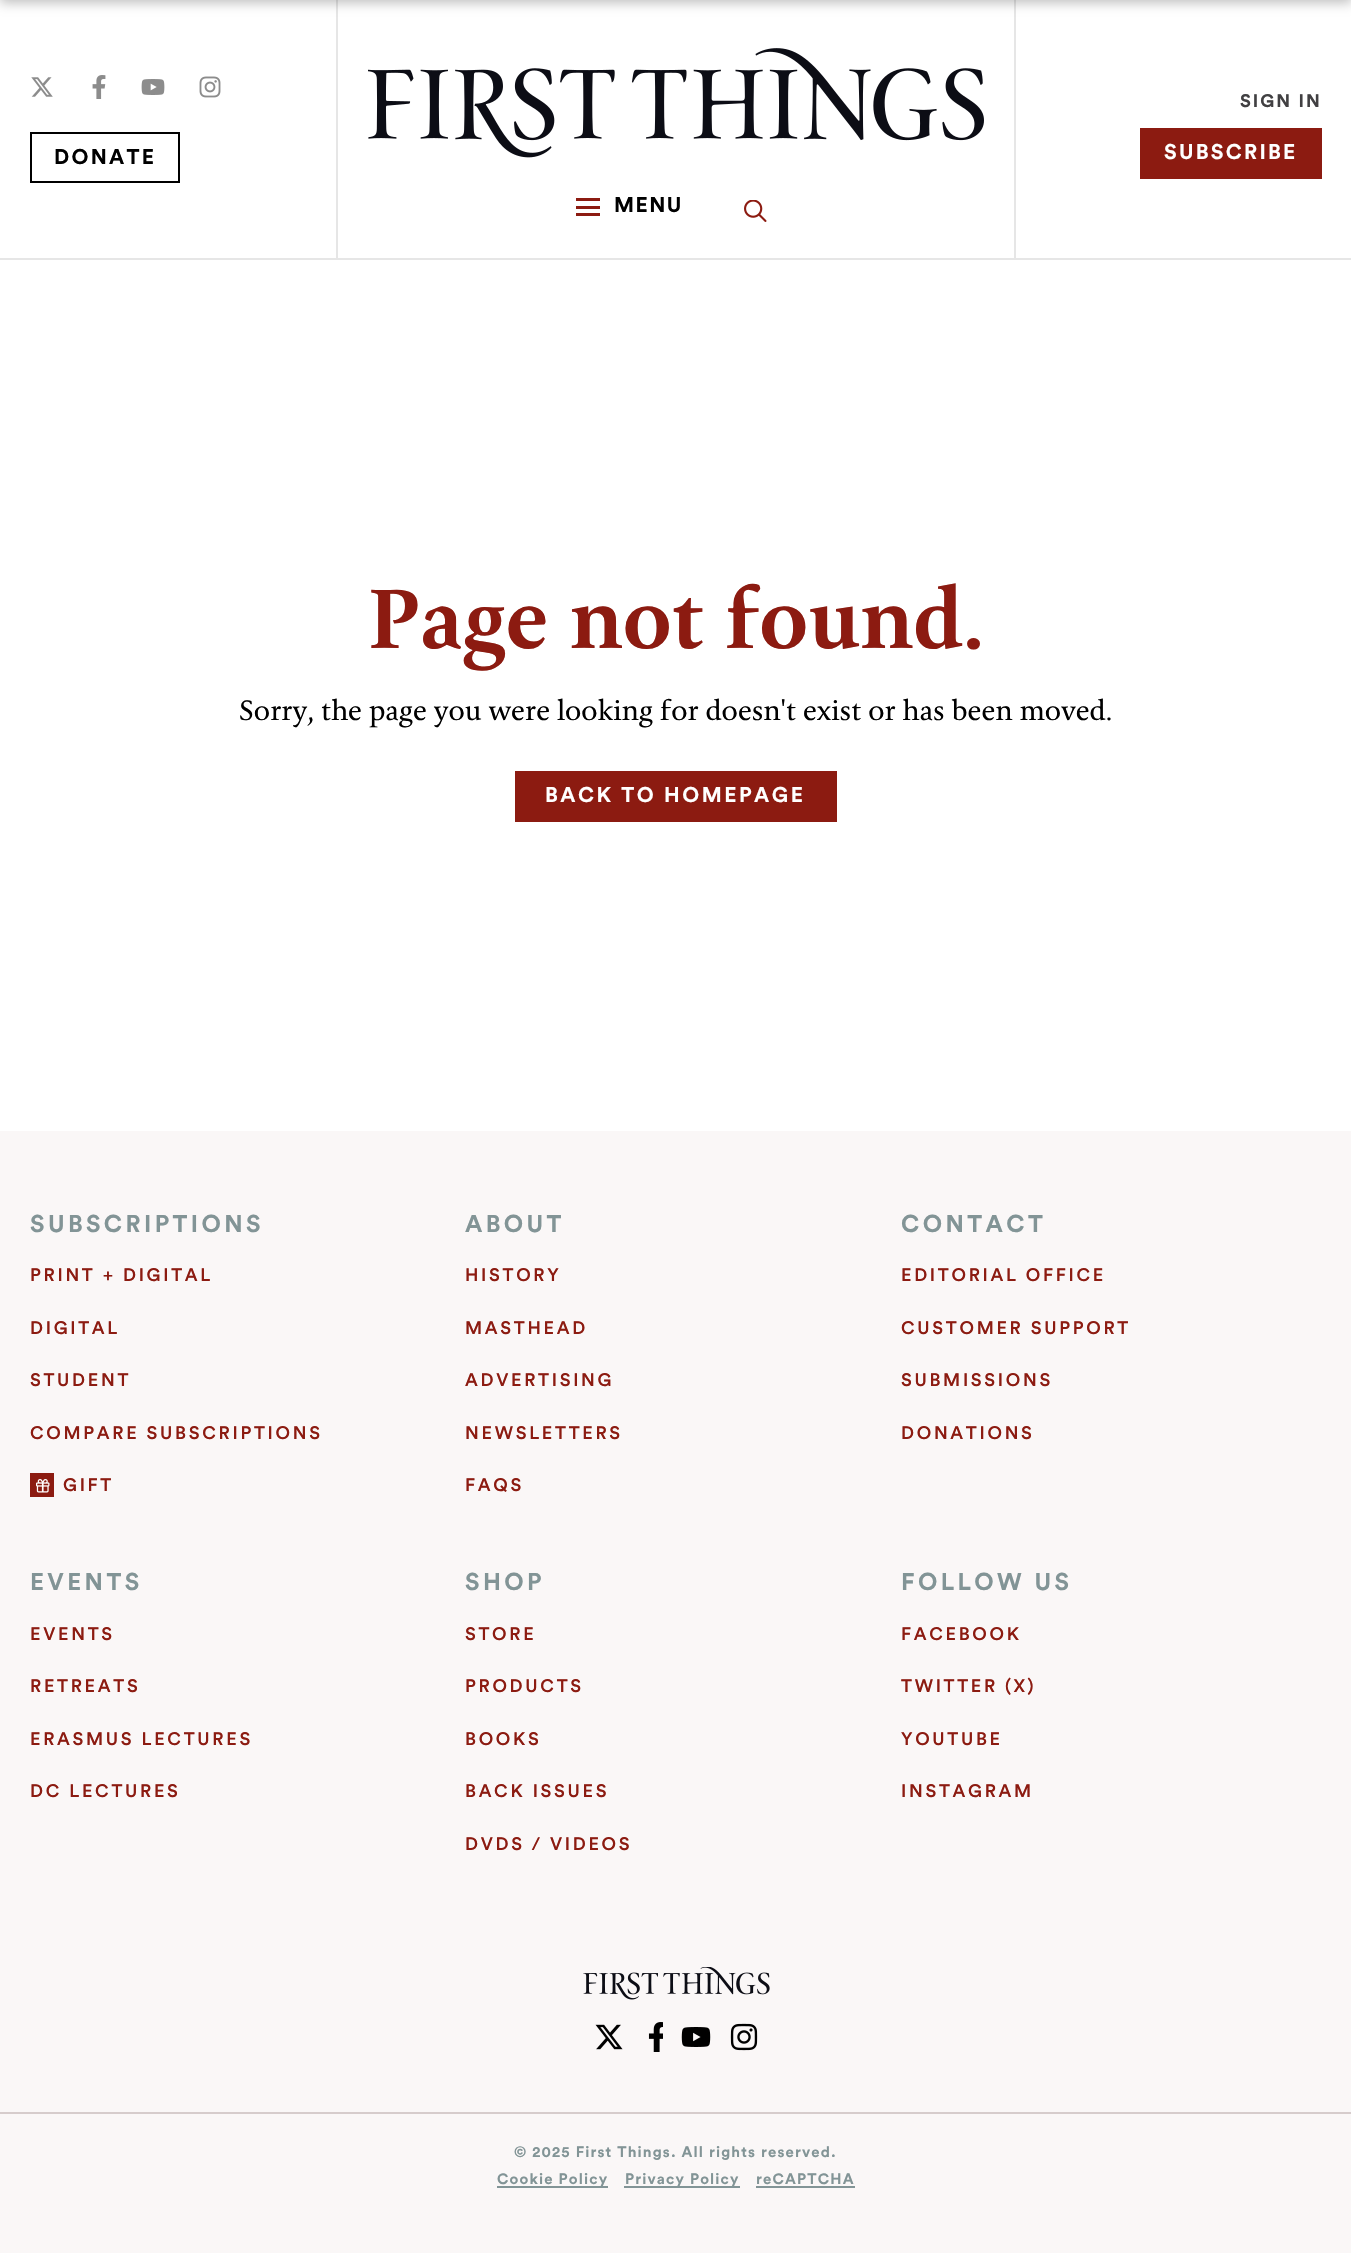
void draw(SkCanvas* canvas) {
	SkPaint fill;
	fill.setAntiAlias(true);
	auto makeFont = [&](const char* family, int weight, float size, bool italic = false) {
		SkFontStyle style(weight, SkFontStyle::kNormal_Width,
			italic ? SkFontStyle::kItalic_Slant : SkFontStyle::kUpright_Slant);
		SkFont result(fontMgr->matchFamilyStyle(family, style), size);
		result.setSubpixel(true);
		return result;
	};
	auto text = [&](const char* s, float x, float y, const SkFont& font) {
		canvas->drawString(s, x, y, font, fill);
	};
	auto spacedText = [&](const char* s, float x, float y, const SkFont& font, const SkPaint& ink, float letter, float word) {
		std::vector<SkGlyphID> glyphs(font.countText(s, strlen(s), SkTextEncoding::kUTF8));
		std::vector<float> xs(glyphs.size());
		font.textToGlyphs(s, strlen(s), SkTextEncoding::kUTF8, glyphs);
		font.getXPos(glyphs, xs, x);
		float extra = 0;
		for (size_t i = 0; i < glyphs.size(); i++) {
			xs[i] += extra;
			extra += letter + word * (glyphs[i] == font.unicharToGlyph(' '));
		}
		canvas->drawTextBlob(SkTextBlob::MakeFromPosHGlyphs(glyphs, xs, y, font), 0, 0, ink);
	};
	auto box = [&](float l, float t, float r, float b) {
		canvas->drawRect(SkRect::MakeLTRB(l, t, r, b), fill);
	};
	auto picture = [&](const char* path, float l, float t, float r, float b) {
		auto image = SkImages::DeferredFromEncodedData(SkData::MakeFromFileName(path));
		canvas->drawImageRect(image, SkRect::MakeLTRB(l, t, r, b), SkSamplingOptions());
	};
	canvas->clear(0xFFFFFFFF);
	fill.setColor(0xFFE6E6E6);
	box(336, 0, 338, 258);
	box(1014, 0, 1016, 258);
	fill.setColor(0x40000000);
	fill.setMaskFilter(SkMaskFilter::MakeBlur(kNormal_SkBlurStyle, 6));
	canvas->drawRect(SkRect::MakeLTRB(0, -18, 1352, 3), fill);
	fill.setMaskFilter(nullptr);
	fill.setColor(0xFFE6E6E6);
	box(0, 258, 1351, 260);
	picture("image0.png", 31, 77, 53, 97);
	picture("image1.png", 92, 75, 106, 99);
	picture("image2.png", 141, 79, 165, 95);
	picture("image3.png", 199, 76, 221, 98);
	fill.setStyle(SkPaint::kStroke_Style);
	fill.setStrokeWidth(2);
	fill.setColor(0xFF000000);
	canvas->drawRect(SkRect::MakeLTRB(31, 133, 179, 182), fill);
	fill.setStyle(SkPaint::kFill_Style);
	fill.setColor(0xFF8C1B11);
	box(1140, 128, 1322, 179);
	picture("image4.png", 368, 48, 984, 158);
	box(576, 206, 600, 209);
	box(576, 198, 600, 201);
	box(576, 213, 600, 216);
	picture("image5.png", 744, 200, 767, 222);
	box(515, 771, 837, 822);
	fill.setColor(0xFFFAF7F7);
	box(0, 1131, 1351, 2253);
	fill.setColor(0xFF8C1B11);
	box(30, 1473, 54, 1497);
	picture("image6.png", 36, 1479, 50, 1493);
	fill.setColor(0xFFD6CCCC);
	box(0, 2112, 1351, 2114);
	picture("image7.png", 583, 1967, 770, 2000);
	picture("image8.png", 595, 2024, 623, 2050);
	picture("image9.png", 648, 2022, 663, 2052);
	picture("image10.png", 681, 2027, 711, 2047);
	picture("image11.png", 730, 2023, 758, 2051);
	fill.setColor(0xFF829496);
	box(497, 2186, 608, 2188);
	box(624, 2186, 740, 2188);
	box(756, 2186, 855, 2188);
	auto font1 = makeFont("Circular", 700, 21);
	fill.setColor(0xFF000000);
	spacedText("DONATE", 54, 164, font1, fill, 2.25f, 0);
	auto font2 = makeFont("Circular", 700, 18);
	fill.setColor(0xFF414042);
	spacedText("SIGN IN", 1240, 107, font2, fill, 2, 0);
	fill.setColor(0xFFFFFFFF);
	spacedText("SUBSCRIBE", 1164, 159, font1, fill, 2.25f, 0);
	fill.setColor(0xFF000000);
	spacedText("MENU", 614, 212, font1, fill, 1.5f, 0);
	auto font3 = makeFont("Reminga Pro", 500, 84.25f);
	fill.setColor(0xFF8C1B11);
	text("Page not found.", 368, 648, font3);
	auto font4 = makeFont("Reminga Pro", 400, 27.9f);
	fill.setColor(0xFF000000);
	text("Sorry, the page you were looking for doesn't exist or has been moved.", 239, 720, font4);
	fill.setColor(0xFFFFFFFF);
	spacedText("BACK TO HOMEPAGE", 545, 802, font1, fill, 2.5f, 0);
	auto font5 = makeFont("Circular", 700, 24);
	fill.setColor(0xFF829496);
	spacedText("SUBSCRIPTIONS", 30, 1232, font5, fill, 3.4f, 0);
	auto font6 = makeFont("Circular", 500, 18);
	fill.setColor(0xFF8C1B11);
	spacedText("PRINT + DIGITAL", 30, 1281, font6, fill, 2.7f, 0);
	spacedText("DIGITAL", 30, 1334, font6, fill, 2.7f, 0);
	spacedText("STUDENT", 30, 1386, font6, fill, 2.7f, 0);
	spacedText("COMPARE SUBSCRIPTIONS", 30, 1439, font6, fill, 2.7f, 0);
	spacedText("GIFT", 63, 1491, font6, fill, 2.7f, 0);
	fill.setColor(0xFF829496);
	spacedText("ABOUT", 465, 1232, font5, fill, 3.4f, 0);
	fill.setColor(0xFF8C1B11);
	spacedText("HISTORY", 465, 1281, font6, fill, 2.7f, 0);
	spacedText("MASTHEAD", 465, 1334, font6, fill, 2.7f, 0);
	spacedText("ADVERTISING", 465, 1386, font6, fill, 2.7f, 0);
	spacedText("NEWSLETTERS", 465, 1439, font6, fill, 2.7f, 0);
	spacedText("FAQS", 465, 1491, font6, fill, 2.7f, 0);
	fill.setColor(0xFF829496);
	spacedText("CONTACT", 901, 1232, font5, fill, 3.4f, 0);
	fill.setColor(0xFF8C1B11);
	spacedText("EDITORIAL OFFICE", 901, 1281, font6, fill, 2.7f, 0);
	spacedText("CUSTOMER SUPPORT", 901, 1334, font6, fill, 2.7f, 0);
	spacedText("SUBMISSIONS", 901, 1386, font6, fill, 2.7f, 0);
	spacedText("DONATIONS", 901, 1439, font6, fill, 2.7f, 0);
	fill.setColor(0xFF829496);
	spacedText("EVENTS", 30, 1590, font5, fill, 3.4f, 0);
	fill.setColor(0xFF8C1B11);
	spacedText("EVENTS", 30, 1640, font6, fill, 2.7f, 0);
	spacedText("RETREATS", 30, 1692, font6, fill, 2.7f, 0);
	spacedText("ERASMUS LECTURES", 30, 1745, font6, fill, 2.7f, 0);
	spacedText("DC LECTURES", 30, 1797, font6, fill, 2.7f, 0);
	fill.setColor(0xFF829496);
	spacedText("SHOP", 465, 1590, font5, fill, 3.4f, 0);
	fill.setColor(0xFF8C1B11);
	spacedText("STORE", 465, 1640, font6, fill, 2.7f, 0);
	spacedText("PRODUCTS", 465, 1692, font6, fill, 2.7f, 0);
	spacedText("BOOKS", 465, 1745, font6, fill, 2.7f, 0);
	spacedText("BACK ISSUES", 465, 1797, font6, fill, 2.7f, 0);
	spacedText("DVDS / VIDEOS", 465, 1850, font6, fill, 2.7f, 0);
	fill.setColor(0xFF829496);
	spacedText("FOLLOW US", 901, 1590, font5, fill, 3.4f, 0);
	fill.setColor(0xFF8C1B11);
	spacedText("FACEBOOK", 901, 1640, font6, fill, 2.7f, 0);
	spacedText("TWITTER (X)", 901, 1692, font6, fill, 2.7f, 0);
	spacedText("YOUTUBE", 901, 1745, font6, fill, 2.7f, 0);
	spacedText("INSTAGRAM", 901, 1797, font6, fill, 2.7f, 0);
	auto font7 = makeFont("Circular", 700, 15);
	fill.setColor(0xFF829496);
	spacedText("© 2025 First Things. All rights reserved.", 514, 2157, font7, fill, 1.15f, 0);
	spacedText("Cookie Policy", 497, 2184, font7, fill, 1.15f, 0);
	spacedText("Privacy Policy", 625, 2184, font7, fill, 1.15f, 0);
	spacedText("reCAPTCHA", 756, 2184, font7, fill, 1.15f, 0);
}
